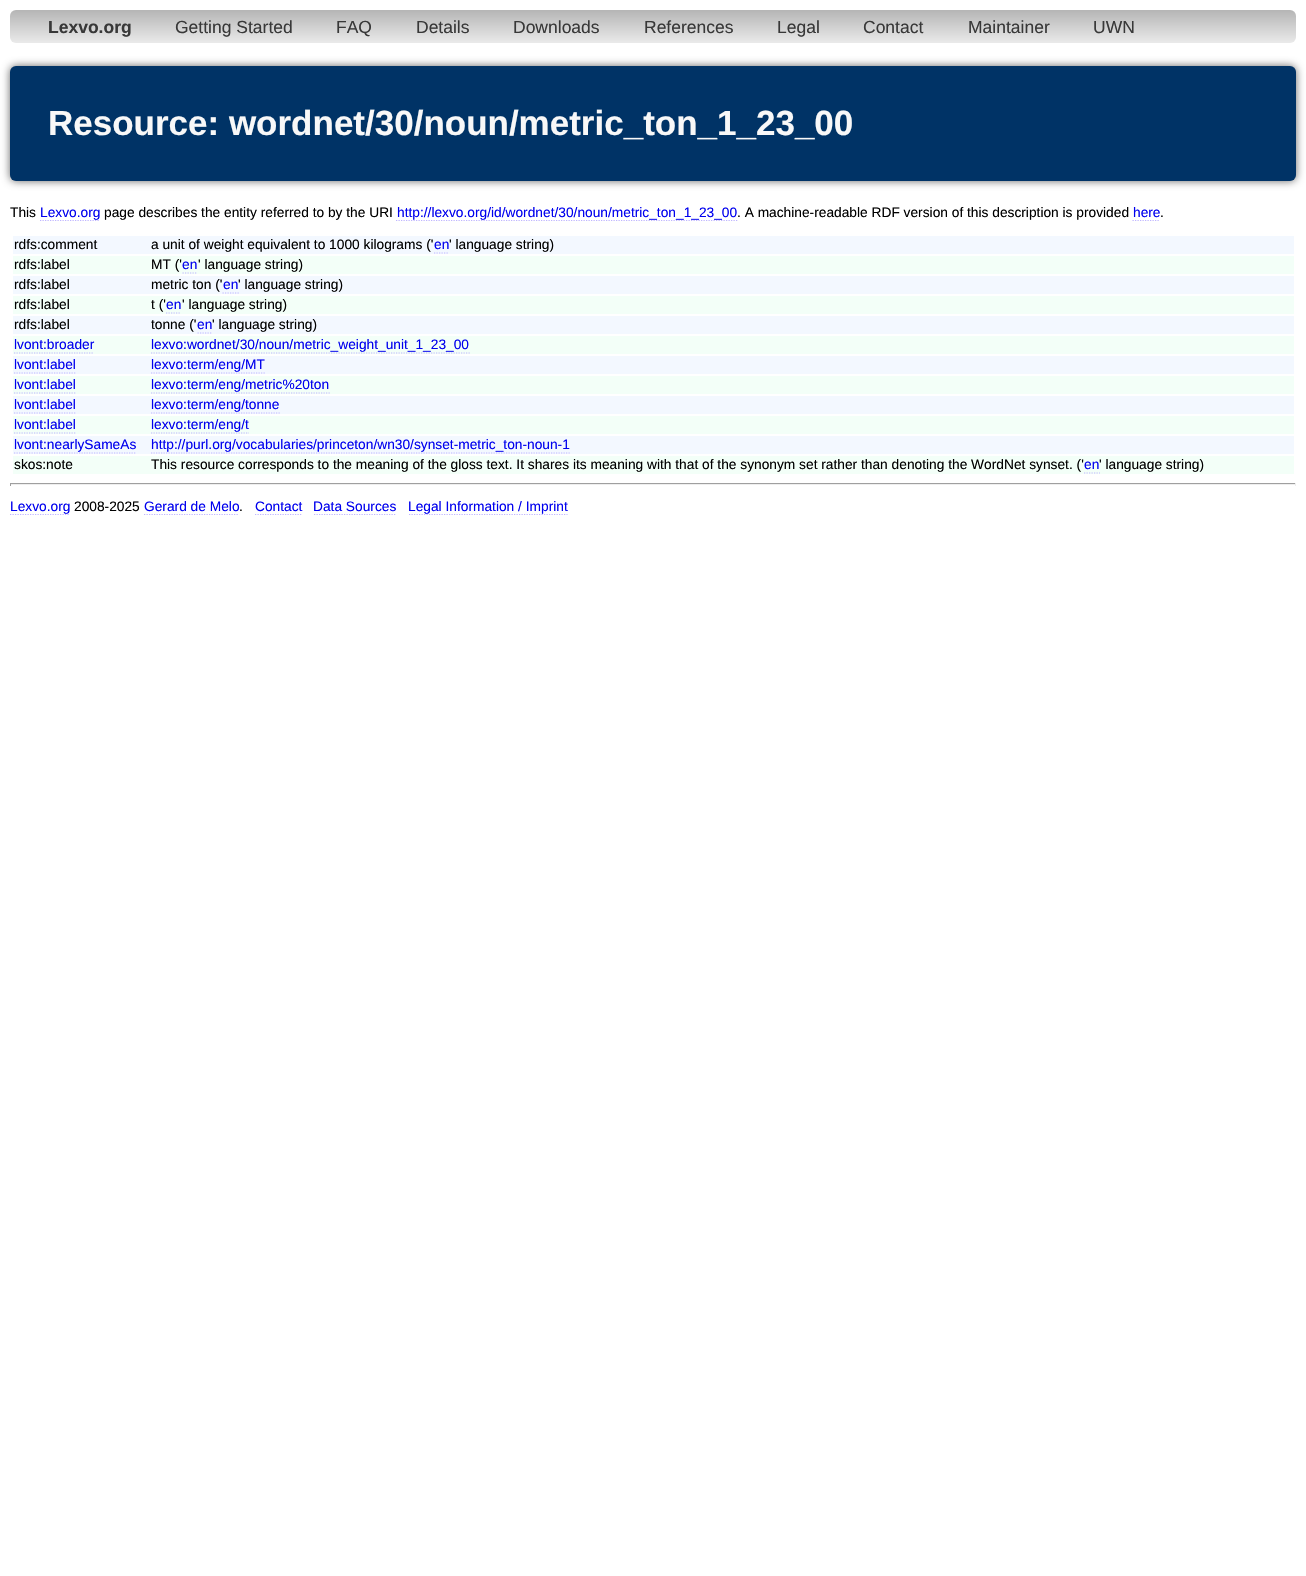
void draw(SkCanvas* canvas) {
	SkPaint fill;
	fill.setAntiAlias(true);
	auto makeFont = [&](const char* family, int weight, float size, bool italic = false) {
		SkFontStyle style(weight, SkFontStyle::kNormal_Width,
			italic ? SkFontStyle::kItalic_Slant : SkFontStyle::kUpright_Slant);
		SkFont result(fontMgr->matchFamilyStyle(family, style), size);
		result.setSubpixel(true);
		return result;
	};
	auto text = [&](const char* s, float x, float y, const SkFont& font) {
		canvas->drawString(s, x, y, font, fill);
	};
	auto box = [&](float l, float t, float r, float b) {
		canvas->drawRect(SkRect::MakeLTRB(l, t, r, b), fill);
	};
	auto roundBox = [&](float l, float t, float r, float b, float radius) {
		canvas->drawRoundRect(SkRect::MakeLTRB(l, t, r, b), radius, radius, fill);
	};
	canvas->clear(0xFFFFFFFF);
	{
		const SkColor colors[] = {0xFFB5B5B5, 0xFFEAEAEA};
		const float stops[] = {0, 1};
		const SkPoint ends[] = {{653, 10}, {653, 43}};
		fill.setShader(SkGradientShader::MakeLinear(ends, colors, stops, 2, SkTileMode::kClamp));
		fill.setAlpha(255);
	}
	roundBox(10, 10, 1296, 43, 6);
	fill.setShader(nullptr);
	fill.setColor(0x99000000);
	fill.setMaskFilter(SkMaskFilter::MakeBlur(kNormal_SkBlurStyle, 4));
	canvas->drawRoundRect(SkRect::MakeLTRB(10, 66, 1296, 181), 6, 6, fill);
	fill.setMaskFilter(nullptr);
	fill.setColor(0xFF003366);
	roundBox(10, 66, 1296, 181, 6);
	fill.setStyle(SkPaint::kStroke_Style);
	fill.setStrokeWidth(1.2f);
	fill.setColor(0xFFBFB6FF);
	fill.setPathEffect(SkDashPathEffect::Make({{1.25f, 1.25f}}, 0));
	canvas->drawPath(SkPathBuilder().moveTo(40, 220.5f).lineTo(100, 220.5f).detach(), fill);
	fill.setPathEffect(nullptr);
	fill.setPathEffect(SkDashPathEffect::Make({{1.25f, 1.25f}}, 0));
	canvas->drawPath(SkPathBuilder().moveTo(396, 220.5f).lineTo(737.5f, 220.5f).detach(), fill);
	fill.setPathEffect(nullptr);
	fill.setPathEffect(SkDashPathEffect::Make({{1.25f, 1.25f}}, 0));
	canvas->drawPath(SkPathBuilder().moveTo(1132.5f, 220.5f).lineTo(1160, 220.5f).detach(), fill);
	fill.setPathEffect(nullptr);
	fill.setStyle(SkPaint::kFill_Style);
	fill.setColor(0xFFF3F8FF);
	box(13, 236, 1294, 254);
	fill.setStyle(SkPaint::kStroke_Style);
	fill.setColor(0xFFBFB6FF);
	fill.setPathEffect(SkDashPathEffect::Make({{1.25f, 1.25f}}, 0));
	canvas->drawPath(SkPathBuilder().moveTo(434, 253).lineTo(449, 253).detach(), fill);
	fill.setPathEffect(nullptr);
	fill.setStyle(SkPaint::kFill_Style);
	fill.setColor(0xFFF3FFF8);
	box(13, 256, 1294, 274);
	fill.setStyle(SkPaint::kStroke_Style);
	fill.setColor(0xFFBFB6FF);
	fill.setPathEffect(SkDashPathEffect::Make({{1.25f, 1.25f}}, 0));
	canvas->drawPath(SkPathBuilder().moveTo(182.5f, 273).lineTo(197.5f, 273).detach(), fill);
	fill.setPathEffect(nullptr);
	fill.setStyle(SkPaint::kFill_Style);
	fill.setColor(0xFFF3F8FF);
	box(13, 276, 1294, 294);
	fill.setStyle(SkPaint::kStroke_Style);
	fill.setColor(0xFFBFB6FF);
	fill.setPathEffect(SkDashPathEffect::Make({{1.25f, 1.25f}}, 0));
	canvas->drawPath(SkPathBuilder().moveTo(222.5f, 293).lineTo(239, 293).detach(), fill);
	fill.setPathEffect(nullptr);
	fill.setStyle(SkPaint::kFill_Style);
	fill.setColor(0xFFF3FFF8);
	box(13, 296, 1294, 314);
	fill.setStyle(SkPaint::kStroke_Style);
	fill.setColor(0xFFBFB6FF);
	fill.setPathEffect(SkDashPathEffect::Make({{1.25f, 1.25f}}, 0));
	canvas->drawPath(SkPathBuilder().moveTo(166, 313).lineTo(181, 313).detach(), fill);
	fill.setPathEffect(nullptr);
	fill.setStyle(SkPaint::kFill_Style);
	fill.setColor(0xFFF3F8FF);
	box(13, 316, 1294, 334);
	fill.setStyle(SkPaint::kStroke_Style);
	fill.setColor(0xFFBFB6FF);
	fill.setPathEffect(SkDashPathEffect::Make({{1.25f, 1.25f}}, 0));
	canvas->drawPath(SkPathBuilder().moveTo(197.5f, 333).lineTo(212.5f, 333).detach(), fill);
	fill.setPathEffect(nullptr);
	fill.setStyle(SkPaint::kFill_Style);
	fill.setColor(0xFFF3FFF8);
	box(13, 336, 1294, 354);
	fill.setStyle(SkPaint::kStroke_Style);
	fill.setColor(0xFFBFB6FF);
	fill.setPathEffect(SkDashPathEffect::Make({{1.25f, 1.25f}}, 0));
	canvas->drawPath(SkPathBuilder().moveTo(14, 353).lineTo(94, 353).detach(), fill);
	fill.setPathEffect(nullptr);
	fill.setPathEffect(SkDashPathEffect::Make({{1.25f, 1.25f}}, 0));
	canvas->drawPath(SkPathBuilder().moveTo(151, 353).lineTo(470, 353).detach(), fill);
	fill.setPathEffect(nullptr);
	fill.setStyle(SkPaint::kFill_Style);
	fill.setColor(0xFFF3F8FF);
	box(13, 356, 1294, 374);
	fill.setStyle(SkPaint::kStroke_Style);
	fill.setColor(0xFFBFB6FF);
	fill.setPathEffect(SkDashPathEffect::Make({{1.25f, 1.25f}}, 0));
	canvas->drawPath(SkPathBuilder().moveTo(14, 373).lineTo(76, 373).detach(), fill);
	fill.setPathEffect(nullptr);
	fill.setPathEffect(SkDashPathEffect::Make({{1.25f, 1.25f}}, 0));
	canvas->drawPath(SkPathBuilder().moveTo(151, 373).lineTo(265, 373).detach(), fill);
	fill.setPathEffect(nullptr);
	fill.setStyle(SkPaint::kFill_Style);
	fill.setColor(0xFFF3FFF8);
	box(13, 376, 1294, 394);
	fill.setStyle(SkPaint::kStroke_Style);
	fill.setColor(0xFFBFB6FF);
	fill.setPathEffect(SkDashPathEffect::Make({{1.25f, 1.25f}}, 0));
	canvas->drawPath(SkPathBuilder().moveTo(14, 393).lineTo(76, 393).detach(), fill);
	fill.setPathEffect(nullptr);
	fill.setPathEffect(SkDashPathEffect::Make({{1.25f, 1.25f}}, 0));
	canvas->drawPath(SkPathBuilder().moveTo(151, 393).lineTo(330, 393).detach(), fill);
	fill.setPathEffect(nullptr);
	fill.setStyle(SkPaint::kFill_Style);
	fill.setColor(0xFFF3F8FF);
	box(13, 396, 1294, 414);
	fill.setStyle(SkPaint::kStroke_Style);
	fill.setColor(0xFFBFB6FF);
	fill.setPathEffect(SkDashPathEffect::Make({{1.25f, 1.25f}}, 0));
	canvas->drawPath(SkPathBuilder().moveTo(14, 413).lineTo(76, 413).detach(), fill);
	fill.setPathEffect(nullptr);
	fill.setPathEffect(SkDashPathEffect::Make({{1.25f, 1.25f}}, 0));
	canvas->drawPath(SkPathBuilder().moveTo(151, 413).lineTo(280, 413).detach(), fill);
	fill.setPathEffect(nullptr);
	fill.setStyle(SkPaint::kFill_Style);
	fill.setColor(0xFFF3FFF8);
	box(13, 416, 1294, 434);
	fill.setStyle(SkPaint::kStroke_Style);
	fill.setColor(0xFFBFB6FF);
	fill.setPathEffect(SkDashPathEffect::Make({{1.25f, 1.25f}}, 0));
	canvas->drawPath(SkPathBuilder().moveTo(14, 433).lineTo(76, 433).detach(), fill);
	fill.setPathEffect(nullptr);
	fill.setPathEffect(SkDashPathEffect::Make({{1.25f, 1.25f}}, 0));
	canvas->drawPath(SkPathBuilder().moveTo(151, 433).lineTo(249, 433).detach(), fill);
	fill.setPathEffect(nullptr);
	fill.setStyle(SkPaint::kFill_Style);
	fill.setColor(0xFFF3F8FF);
	box(13, 436, 1294, 454);
	fill.setStyle(SkPaint::kStroke_Style);
	fill.setColor(0xFFBFB6FF);
	fill.setPathEffect(SkDashPathEffect::Make({{1.25f, 1.25f}}, 0));
	canvas->drawPath(SkPathBuilder().moveTo(14, 453).lineTo(136, 453).detach(), fill);
	fill.setPathEffect(nullptr);
	fill.setPathEffect(SkDashPathEffect::Make({{1.25f, 1.25f}}, 0));
	canvas->drawPath(SkPathBuilder().moveTo(151, 453).lineTo(570, 453).detach(), fill);
	fill.setPathEffect(nullptr);
	fill.setStyle(SkPaint::kFill_Style);
	fill.setColor(0xFFF3FFF8);
	box(13, 456, 1294, 474);
	fill.setStyle(SkPaint::kStroke_Style);
	fill.setColor(0xFFBFB6FF);
	fill.setPathEffect(SkDashPathEffect::Make({{1.25f, 1.25f}}, 0));
	canvas->drawPath(SkPathBuilder().moveTo(1084, 473).lineTo(1100, 473).detach(), fill);
	fill.setPathEffect(nullptr);
	fill.setStyle(SkPaint::kFill_Style);
	fill.setColor(0xFF9F9F9F);
	box(10, 483, 1296, 484);
	fill.setColor(0xFFEEEEEE);
	box(1295, 483, 1296, 486);
	box(10, 484, 1296, 485);
	fill.setColor(0xFF9F9F9F);
	box(10, 483, 11, 486);
	fill.setStyle(SkPaint::kStroke_Style);
	fill.setColor(0xFFBFB6FF);
	fill.setPathEffect(SkDashPathEffect::Make({{1.25f, 1.25f}}, 0));
	canvas->drawPath(SkPathBuilder().moveTo(10, 514.5f).lineTo(70, 514.5f).detach(), fill);
	fill.setPathEffect(nullptr);
	fill.setPathEffect(SkDashPathEffect::Make({{1.25f, 1.25f}}, 0));
	canvas->drawPath(SkPathBuilder().moveTo(144, 514.5f).lineTo(239, 514.5f).detach(), fill);
	fill.setPathEffect(nullptr);
	fill.setPathEffect(SkDashPathEffect::Make({{1.25f, 1.25f}}, 0));
	canvas->drawPath(SkPathBuilder().moveTo(255, 514.5f).lineTo(302.5f, 514.5f).detach(), fill);
	fill.setPathEffect(nullptr);
	fill.setPathEffect(SkDashPathEffect::Make({{1.25f, 1.25f}}, 0));
	canvas->drawPath(SkPathBuilder().moveTo(314, 514.5f).lineTo(396, 514.5f).detach(), fill);
	fill.setPathEffect(nullptr);
	fill.setPathEffect(SkDashPathEffect::Make({{1.25f, 1.25f}}, 0));
	canvas->drawPath(SkPathBuilder().moveTo(409, 514.5f).lineTo(567.5f, 514.5f).detach(), fill);
	fill.setPathEffect(nullptr);
	auto font1 = makeFont("Liberation Sans", 700, 17.5f);
	fill.setStyle(SkPaint::kFill_Style);
	fill.setColor(0xFF383838);
	text("Lexvo.org", 48, 33, font1);
	auto font2 = makeFont("Liberation Sans", 400, 17.5f);
	text("Getting Started", 175, 33, font2);
	text("FAQ", 336, 33, font2);
	text("Details", 416, 33, font2);
	text("Downloads", 513, 33, font2);
	text("References", 644, 33, font2);
	text("Legal", 777, 33, font2);
	text("Contact", 863, 33, font2);
	text("Maintainer", 968, 33, font2);
	text("UWN", 1093, 33, font2);
	auto font3 = makeFont("Liberation Sans", 700, 35);
	fill.setColor(0xFFF8F8F8);
	text("Resource: wordnet/30/noun/metric_ton_1_23_00", 48, 135, font3);
	auto font4 = makeFont("Liberation Sans", 400, 13.75f);
	fill.setColor(0xFF000000);
	text("This", 10, 217, font4);
	fill.setColor(0xFF0000EE);
	text("Lexvo.org", 40, 217, font4);
	fill.setColor(0xFF000000);
	text("page describes the entity referred to by the URI", 104, 217, font4);
	fill.setColor(0xFF0000EE);
	text("http://lexvo.org/id/wordnet/30/noun/metric_ton_1_23_00", 397, 217, font4);
	fill.setColor(0xFF000000);
	text(". A machine-readable RDF version of this description is provided", 737, 217, font4);
	fill.setColor(0xFF0000EE);
	text("here", 1133, 217, font4);
	fill.setColor(0xFF000000);
	text(".", 1160, 217, font4);
	text("rdfs:comment", 14, 249, font4);
	text("a unit of weight equivalent to 1000 kilograms ('", 151, 249, font4);
	fill.setColor(0xFF0000EE);
	text("en", 434, 249, font4);
	fill.setColor(0xFF000000);
	text("' language string)", 449, 249, font4);
	text("rdfs:label", 14, 269, font4);
	text("MT ('", 151, 269, font4);
	fill.setColor(0xFF0000EE);
	text("en", 182, 269, font4);
	fill.setColor(0xFF000000);
	text("' language string)", 198, 269, font4);
	text("rdfs:label", 14, 289, font4);
	text("metric ton ('", 151, 289, font4);
	fill.setColor(0xFF0000EE);
	text("en", 223, 289, font4);
	fill.setColor(0xFF000000);
	text("' language string)", 238, 289, font4);
	text("rdfs:label", 14, 309, font4);
	text("t ('", 151, 309, font4);
	fill.setColor(0xFF0000EE);
	text("en", 166, 309, font4);
	fill.setColor(0xFF000000);
	text("' language string)", 182, 309, font4);
	text("rdfs:label", 14, 329, font4);
	text("tonne ('", 151, 329, font4);
	fill.setColor(0xFF0000EE);
	text("en", 197, 329, font4);
	fill.setColor(0xFF000000);
	text("' language string)", 212, 329, font4);
	fill.setColor(0xFF0000EE);
	text("lvont:broader", 14, 349, font4);
	text("lexvo:wordnet/30/noun/metric_weight_unit_1_23_00", 151, 349, font4);
	text("lvont:label", 14, 369, font4);
	text("lexvo:term/eng/MT", 151, 369, font4);
	text("lvont:label", 14, 389, font4);
	text("lexvo:term/eng/metric%20ton", 151, 389, font4);
	text("lvont:label", 14, 409, font4);
	text("lexvo:term/eng/tonne", 151, 409, font4);
	text("lvont:label", 14, 429, font4);
	text("lexvo:term/eng/t", 151, 429, font4);
	text("lvont:nearlySameAs", 14, 449, font4);
	text("http://purl.org/vocabularies/princeton/wn30/synset-metric_ton-noun-1", 151, 449, font4);
	fill.setColor(0xFF000000);
	text("skos:note", 14, 469, font4);
	text("This resource corresponds to the meaning of the gloss text. It shares its meaning with that of the synonym set rather than denoting the WordNet synset. ('", 151, 469, font4);
	fill.setColor(0xFF0000EE);
	text("en", 1084, 469, font4);
	fill.setColor(0xFF000000);
	text("' language string)", 1099, 469, font4);
	fill.setColor(0xFF0000EE);
	text("Lexvo.org", 10, 511, font4);
	fill.setColor(0xFF000000);
	text("2008-2025", 74, 511, font4);
	fill.setColor(0xFF0000EE);
	text("Gerard de Melo", 144, 511, font4);
	fill.setColor(0xFF000000);
	text(".", 239, 511, font4);
	fill.setColor(0xFF0000EE);
	text("Contact", 255, 511, font4);
	text("Data Sources", 313, 511, font4);
	text("Legal Information / Imprint", 408, 511, font4);
}
